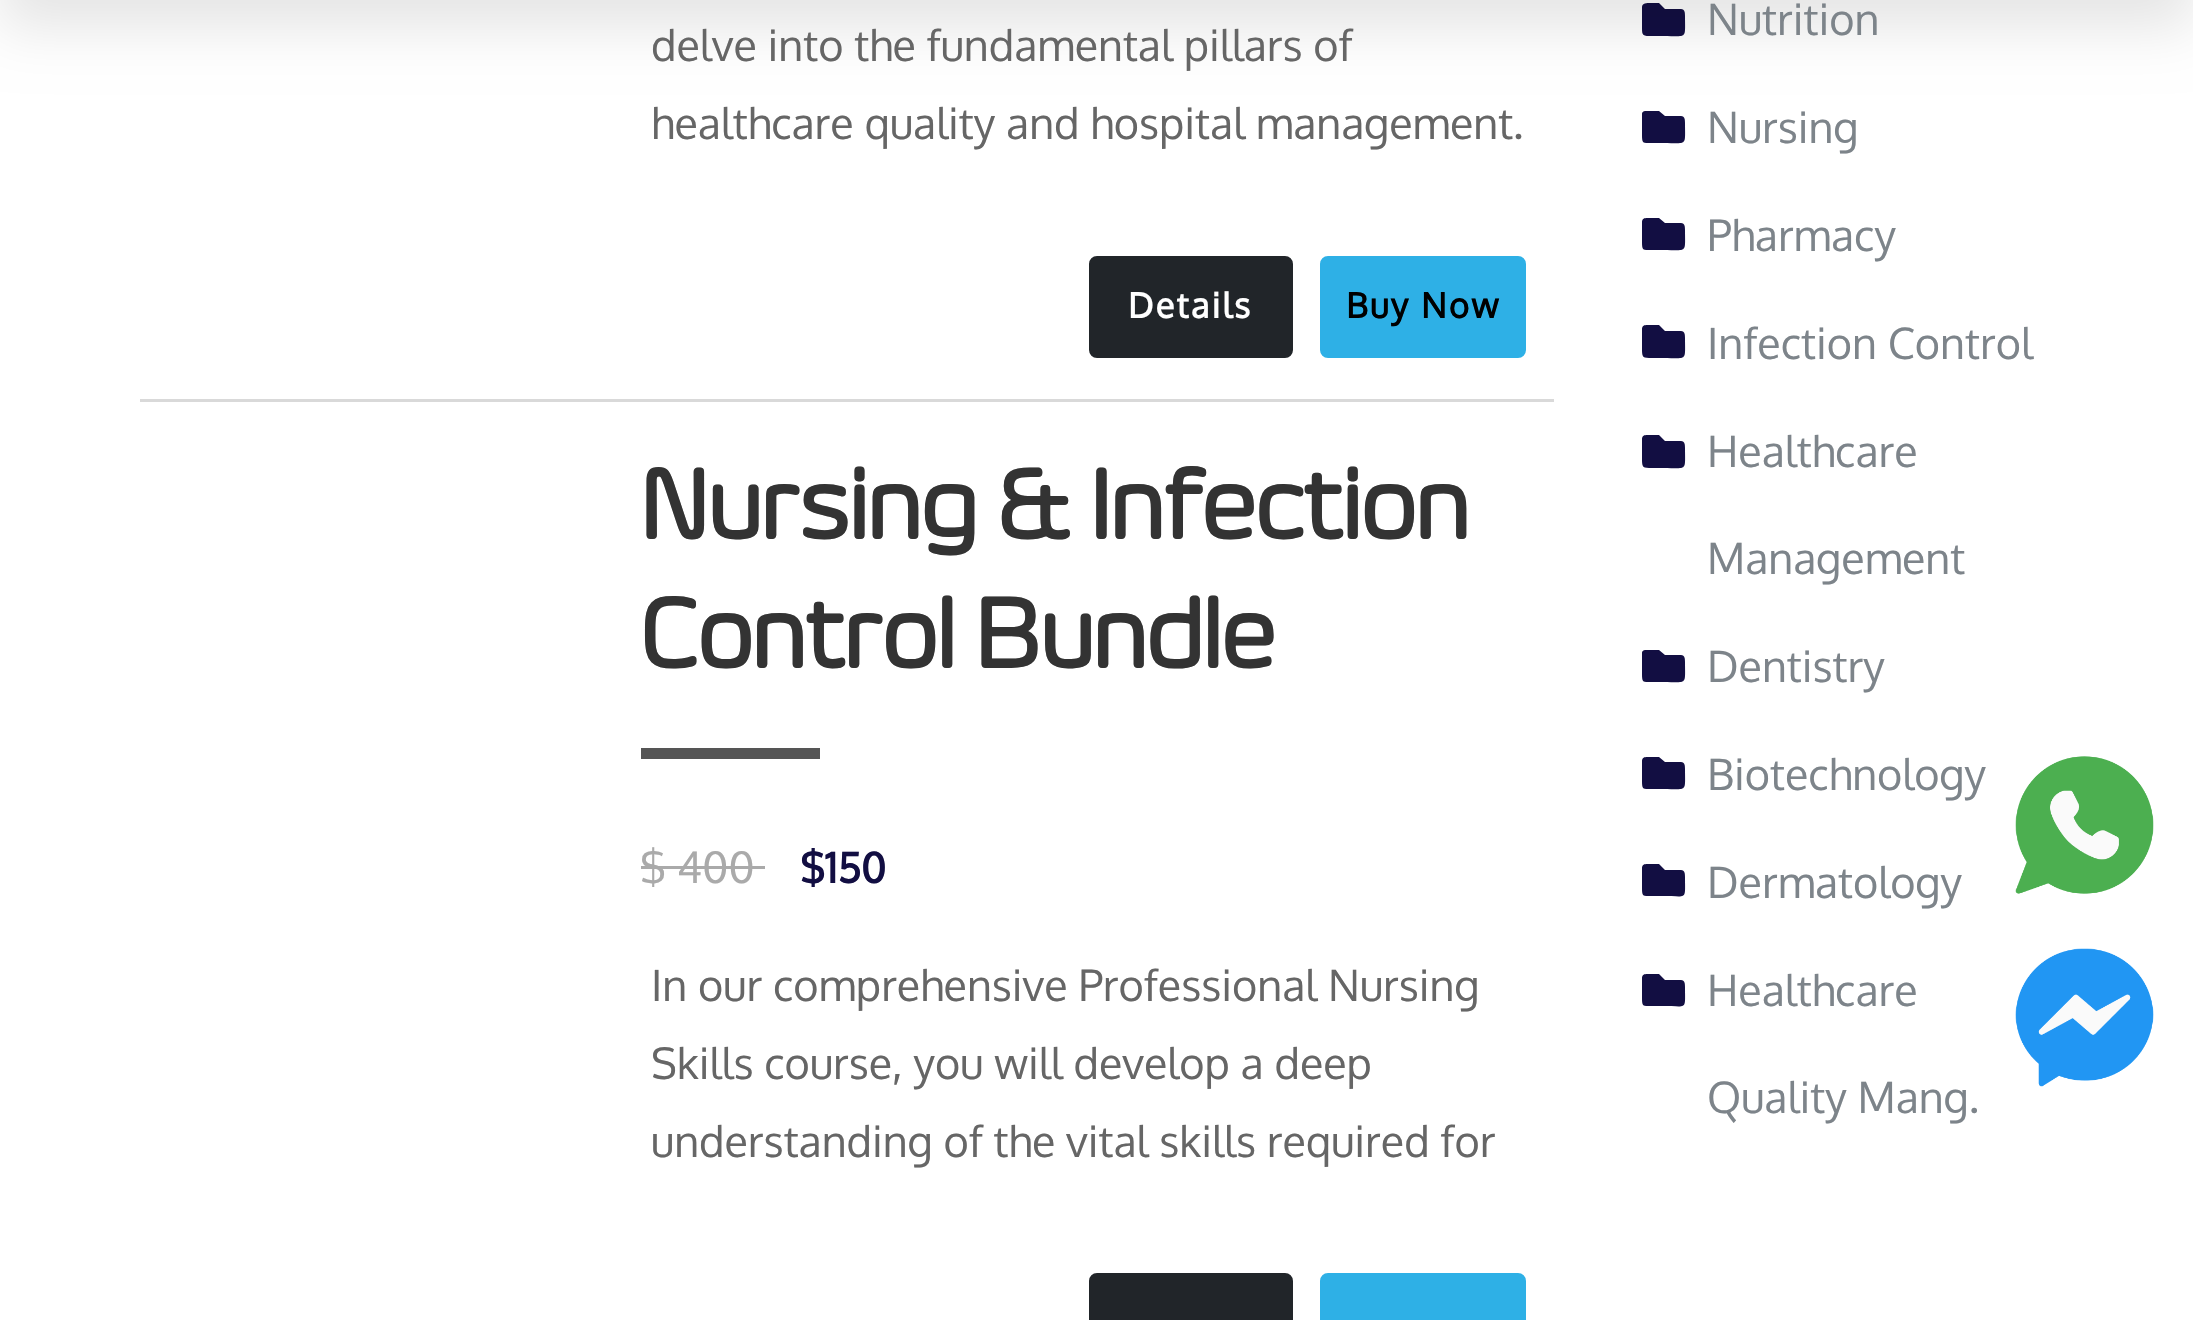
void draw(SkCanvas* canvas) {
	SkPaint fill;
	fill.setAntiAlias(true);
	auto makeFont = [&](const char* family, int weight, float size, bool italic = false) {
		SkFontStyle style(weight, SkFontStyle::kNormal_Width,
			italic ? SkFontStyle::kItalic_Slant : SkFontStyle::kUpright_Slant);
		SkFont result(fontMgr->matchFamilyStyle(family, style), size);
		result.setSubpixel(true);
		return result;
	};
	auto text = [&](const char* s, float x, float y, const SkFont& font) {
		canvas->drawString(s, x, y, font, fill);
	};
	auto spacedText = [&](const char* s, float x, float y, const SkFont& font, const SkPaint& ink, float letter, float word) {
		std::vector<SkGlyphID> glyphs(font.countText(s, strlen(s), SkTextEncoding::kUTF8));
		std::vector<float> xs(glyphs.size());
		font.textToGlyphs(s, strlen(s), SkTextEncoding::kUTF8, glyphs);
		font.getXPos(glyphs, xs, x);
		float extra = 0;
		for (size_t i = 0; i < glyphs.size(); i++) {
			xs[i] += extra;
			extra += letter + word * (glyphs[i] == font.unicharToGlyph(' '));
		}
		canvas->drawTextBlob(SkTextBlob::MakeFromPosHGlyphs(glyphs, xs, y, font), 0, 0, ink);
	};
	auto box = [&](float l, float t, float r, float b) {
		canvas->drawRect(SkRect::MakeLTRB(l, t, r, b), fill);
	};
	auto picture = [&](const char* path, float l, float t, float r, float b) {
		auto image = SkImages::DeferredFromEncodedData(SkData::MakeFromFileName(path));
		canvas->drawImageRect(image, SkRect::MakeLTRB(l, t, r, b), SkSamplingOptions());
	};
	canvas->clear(0xFFFFFFFF);
	fill.setColor(0xFF120E42);
	canvas->drawPath(SkPathBuilder().moveTo(1681, 9).cubicTo(1685, 9, 1685, 13, 1685, 16).cubicTo(1685, 40, 1688, 36, 1663, 36).lineTo(1652, 36).cubicTo(1643, 36, 1642, 36, 1642, 28).lineTo(1642, 7).cubicTo(1642, 3, 1647, 3, 1650, 3).lineTo(1659, 3).lineTo(1665, 9).close().detach(), fill);
	canvas->drawPath(SkPathBuilder().moveTo(1681, 116).cubicTo(1685, 116, 1685, 120, 1685, 123).cubicTo(1685, 147, 1688, 143, 1663, 143).lineTo(1652, 143).cubicTo(1643, 143, 1642, 144, 1642, 135).lineTo(1642, 114).cubicTo(1642, 110, 1647, 111, 1650, 111).lineTo(1659, 111).lineTo(1665, 116).close().detach(), fill);
	fill.setColor(0x1A000000);
	fill.setMaskFilter(SkMaskFilter::MakeBlur(kNormal_SkBlurStyle, 27.5f));
	canvas->drawRect(SkRect::MakeLTRB(0, -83, 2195, 28), fill);
	fill.setMaskFilter(nullptr);
	fill.setColor(0xFF212529);
	canvas->drawRoundRect(SkRect::MakeLTRB(1092, 259, 1290, 355), 5, 5, fill);
	fill.setStyle(SkPaint::kStroke_Style);
	fill.setStrokeWidth(6);
	canvas->drawRoundRect(SkRect::MakeLTRB(1092, 259, 1290, 355), 5, 5, fill);
	fill.setStyle(SkPaint::kFill_Style);
	fill.setColor(0xFF2EB0E6);
	canvas->drawRoundRect(SkRect::MakeLTRB(1323, 259, 1523, 355), 5, 5, fill);
	fill.setStyle(SkPaint::kStroke_Style);
	canvas->drawRoundRect(SkRect::MakeLTRB(1323, 259, 1523, 355), 5, 5, fill);
	fill.setStyle(SkPaint::kFill_Style);
	fill.setColor(0xFFD9D9D9);
	box(140, 399, 1554, 402);
	fill.setColor(0xFF555555);
	box(641, 748, 820, 759);
	fill.setColor(0xFFAAAAAA);
	box(641, 866, 765, 869);
	fill.setColor(0xFF212529);
	canvas->drawRoundRect(SkRect::MakeLTRB(1092, 1276, 1290, 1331), 5, 5, fill);
	fill.setStyle(SkPaint::kStroke_Style);
	canvas->drawRoundRect(SkRect::MakeLTRB(1092, 1276, 1290, 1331), 5, 5, fill);
	fill.setStyle(SkPaint::kFill_Style);
	fill.setColor(0xFF2EB0E6);
	canvas->drawRoundRect(SkRect::MakeLTRB(1323, 1276, 1523, 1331), 5, 5, fill);
	fill.setStyle(SkPaint::kStroke_Style);
	canvas->drawRoundRect(SkRect::MakeLTRB(1323, 1276, 1523, 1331), 5, 5, fill);
	fill.setStyle(SkPaint::kFill_Style);
	fill.setColor(0xFF120E42);
	canvas->drawPath(SkPathBuilder().moveTo(1681, 223).cubicTo(1685, 223, 1685, 227, 1685, 230).cubicTo(1685, 254, 1688, 250, 1663, 250).lineTo(1652, 250).cubicTo(1643, 250, 1642, 251, 1642, 242).lineTo(1642, 222).cubicTo(1642, 217, 1647, 218, 1650, 218).lineTo(1659, 218).lineTo(1665, 223).close().detach(), fill);
	canvas->drawPath(SkPathBuilder().moveTo(1681, 331).cubicTo(1685, 331, 1685, 335, 1685, 338).cubicTo(1685, 362, 1688, 358, 1663, 358).lineTo(1652, 358).cubicTo(1643, 358, 1642, 358, 1642, 349).lineTo(1642, 329).cubicTo(1642, 324, 1647, 325, 1650, 325).lineTo(1659, 325).lineTo(1665, 331).close().detach(), fill);
	canvas->drawPath(SkPathBuilder().moveTo(1681, 441).cubicTo(1685, 441, 1685, 445, 1685, 448).cubicTo(1685, 472, 1688, 468, 1663, 468).lineTo(1652, 468).cubicTo(1643, 468, 1642, 468, 1642, 459).lineTo(1642, 439).cubicTo(1642, 434, 1647, 435, 1650, 435).lineTo(1659, 435).lineTo(1665, 441).close().detach(), fill);
	canvas->drawPath(SkPathBuilder().moveTo(1681, 655).cubicTo(1685, 655, 1685, 659, 1685, 662).cubicTo(1685, 686, 1688, 682, 1663, 682).lineTo(1652, 682).cubicTo(1643, 682, 1642, 683, 1642, 674).lineTo(1642, 653).cubicTo(1642, 649, 1647, 650, 1650, 650).lineTo(1659, 650).lineTo(1665, 655).close().detach(), fill);
	canvas->drawPath(SkPathBuilder().moveTo(1681, 762).cubicTo(1685, 762, 1685, 766, 1685, 769).cubicTo(1685, 793, 1688, 789, 1663, 789).lineTo(1652, 789).cubicTo(1643, 789, 1642, 790, 1642, 781).lineTo(1642, 761).cubicTo(1642, 756, 1647, 757, 1650, 757).lineTo(1659, 757).lineTo(1665, 762).close().detach(), fill);
	canvas->drawPath(SkPathBuilder().moveTo(1681, 870).cubicTo(1685, 870, 1685, 874, 1685, 877).cubicTo(1685, 901, 1688, 896, 1663, 896).lineTo(1652, 896).cubicTo(1643, 896, 1642, 897, 1642, 888).lineTo(1642, 868).cubicTo(1642, 863, 1647, 864, 1650, 864).lineTo(1659, 864).lineTo(1665, 870).close().detach(), fill);
	canvas->drawPath(SkPathBuilder().moveTo(1681, 980).cubicTo(1685, 980, 1685, 984, 1685, 987).cubicTo(1685, 1011, 1688, 1006, 1663, 1006).lineTo(1652, 1006).cubicTo(1643, 1006, 1642, 1007, 1642, 998).lineTo(1642, 978).cubicTo(1642, 973, 1647, 974, 1650, 974).lineTo(1659, 974).lineTo(1665, 980).close().detach(), fill);
	picture("image0.png", 2015, 756, 2154, 894);
	picture("image1.png", 2015, 948, 2154, 1087);
	auto font1 = makeFont("Oxygen", 400, 43.1f);
	fill.setColor(0xFF666666);
	text("delve into the fundamental pillars of", 651, 61, font1);
	text("healthcare quality and hospital management.", 651, 139, font1);
	auto font2 = makeFont("Oxygen", 700, 34.5f);
	fill.setColor(0xFFFFFFFF);
	spacedText("Details", 1128, 318, font2, fill, 2.25f, 0);
	fill.setColor(0xFF000000);
	spacedText("Buy Now", 1346, 318, font2, fill, 2.25f, 0);
	auto font3 = makeFont("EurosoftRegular", 700, 99.5f);
	fill.setColor(0xFF333333);
	text("Nursing & Infection", 640, 539, font3);
	text("Control Bundle", 640, 668, font3);
	fill.setColor(0xFFAAAAAA);
	text("$ 400", 640, 883, font1);
	auto font4 = makeFont("Oxygen", 700, 41);
	fill.setColor(0xFF120E42);
	text("$150", 800, 883, font4);
	fill.setColor(0xFF666666);
	text("In our comprehensive Professional Nursing", 651, 1001, font1);
	text("Skills course, you will develop a deep", 651, 1079, font1);
	text("understanding of the vital skills required for", 651, 1157, font1);
	fill.setColor(0xFF7D848A);
	text("Nutrition", 1707, 35, font1);
	text("Nursing", 1707, 143, font1);
	text("Pharmacy", 1707, 251, font1);
	text("Infection Control", 1707, 359, font1);
	text("Healthcare", 1707, 467, font1);
	text("Management", 1707, 574, font1);
	text("Dentistry", 1707, 682, font1);
	text("Biotechnology", 1707, 790, font1);
	text("Dermatology", 1707, 898, font1);
	text("Healthcare", 1707, 1006, font1);
	text("Quality Mang.", 1707, 1113, font1);
}
